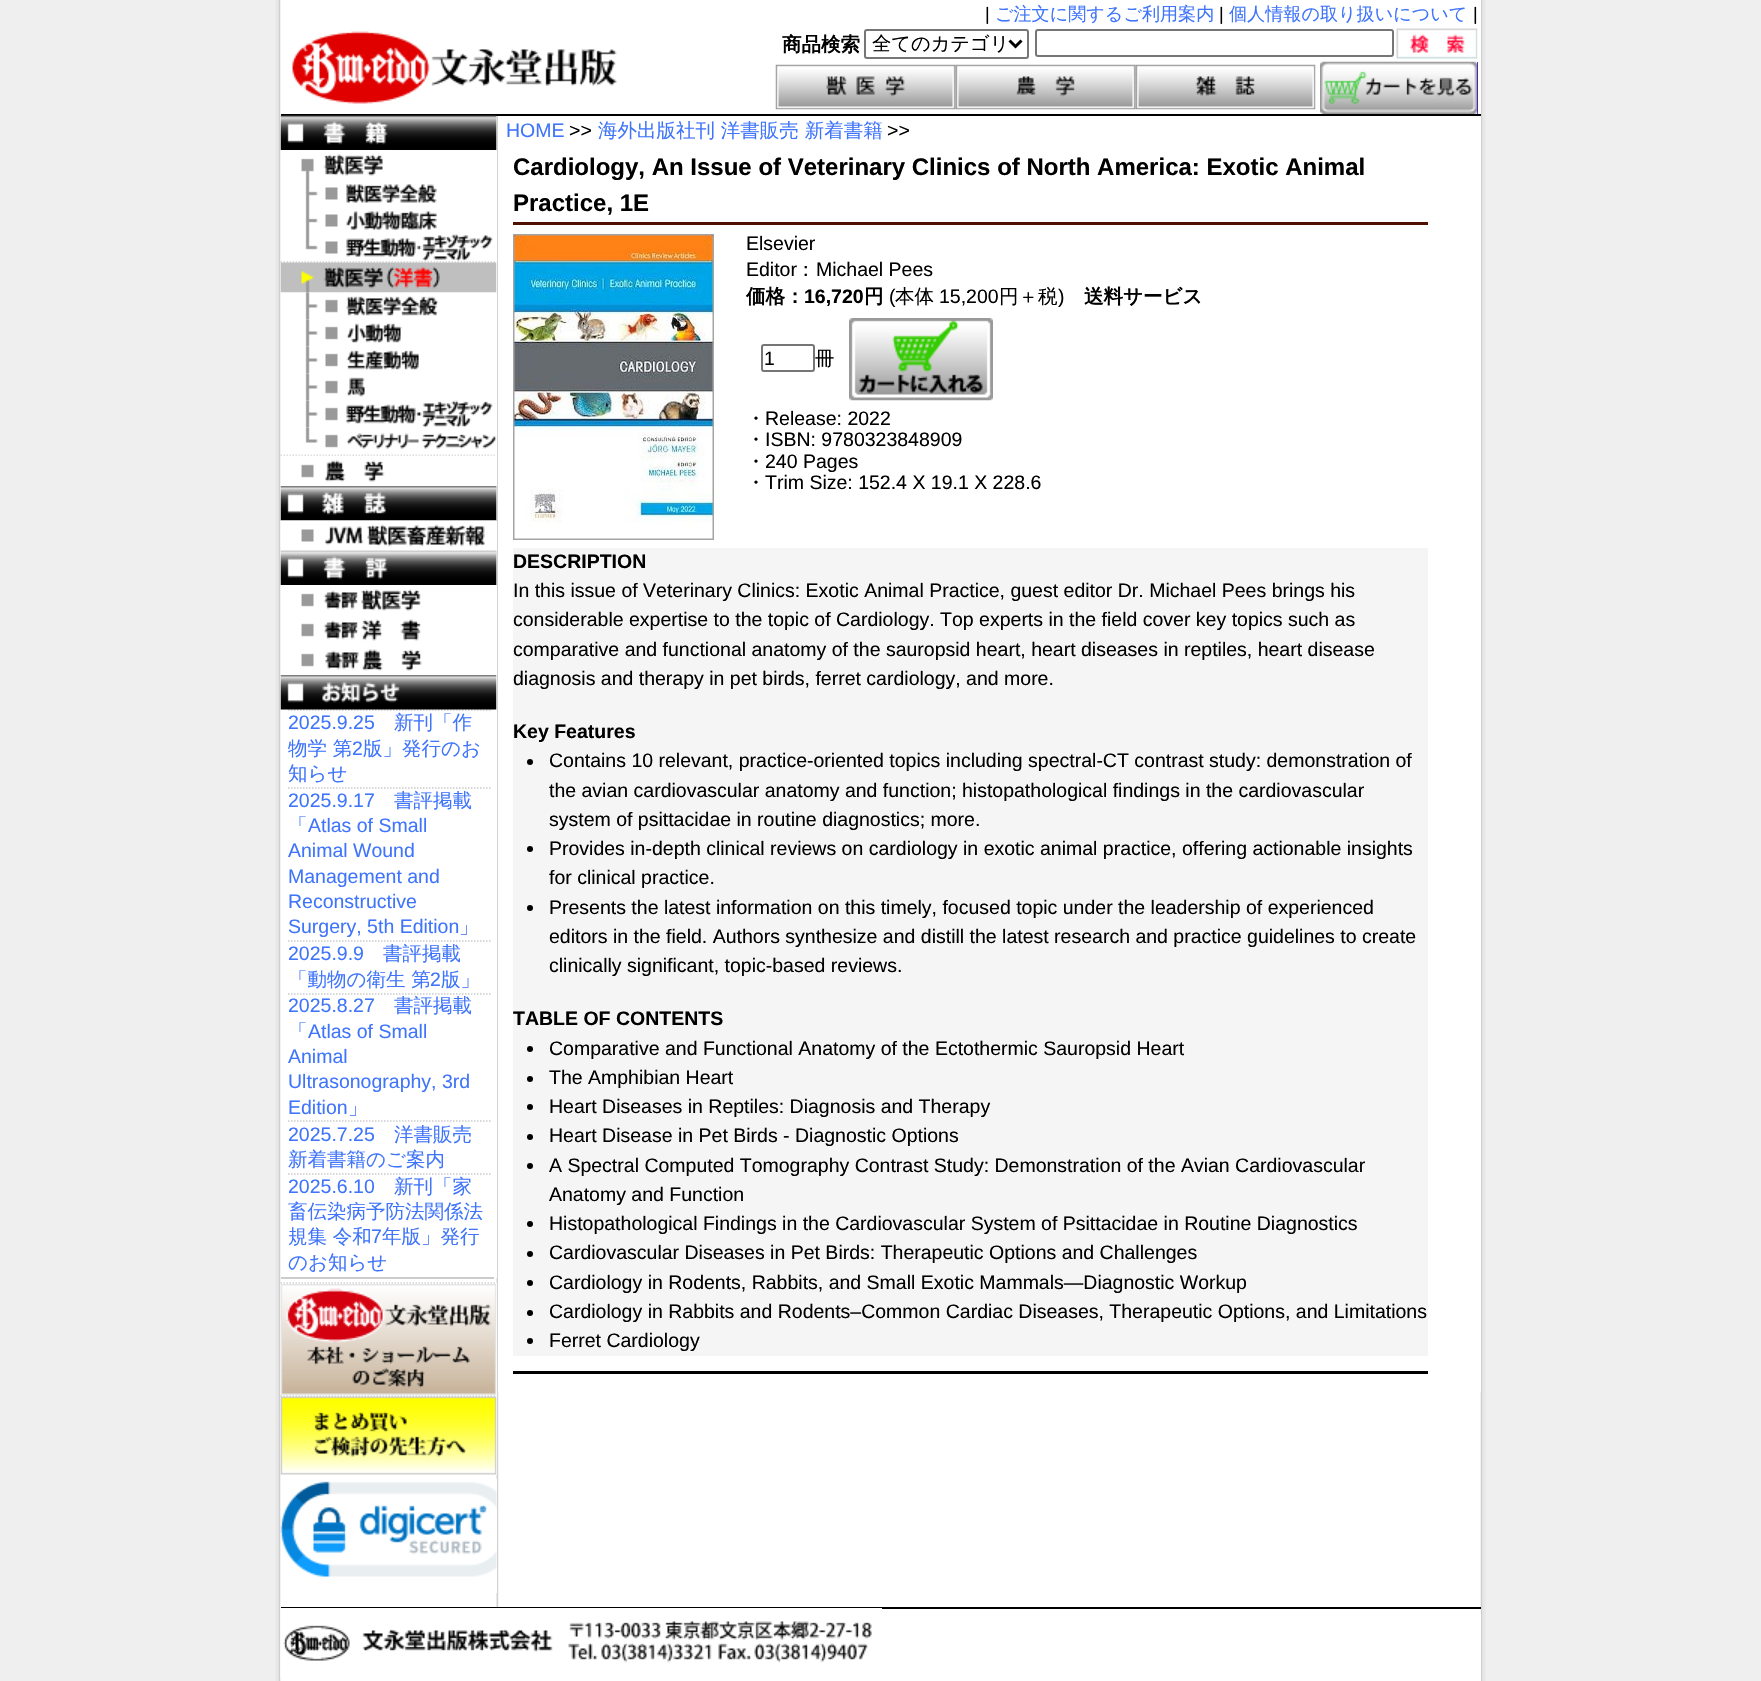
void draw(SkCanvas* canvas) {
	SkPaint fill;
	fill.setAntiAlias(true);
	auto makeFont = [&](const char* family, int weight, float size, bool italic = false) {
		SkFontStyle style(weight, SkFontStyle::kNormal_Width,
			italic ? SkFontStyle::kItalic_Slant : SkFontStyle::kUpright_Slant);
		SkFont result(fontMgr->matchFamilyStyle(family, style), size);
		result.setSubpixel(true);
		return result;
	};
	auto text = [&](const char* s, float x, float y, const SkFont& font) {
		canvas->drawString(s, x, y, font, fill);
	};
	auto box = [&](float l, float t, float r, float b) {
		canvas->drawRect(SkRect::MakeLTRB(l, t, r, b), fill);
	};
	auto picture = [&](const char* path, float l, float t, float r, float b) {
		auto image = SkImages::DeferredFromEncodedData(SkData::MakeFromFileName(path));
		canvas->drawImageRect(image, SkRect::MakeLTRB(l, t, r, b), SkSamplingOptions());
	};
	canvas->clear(0xFFEFEFEF);
	picture("image0.png", 275, 0, 1486, 1681);
	picture("image1.png", 280, 0, 1481, 1681);
	fill.setColor(0xFFFFFFFF);
	box(496, 0, 1481, 114);
	picture("image2.png", 292, 31, 617, 104);
	fill.setStyle(SkPaint::kStroke_Style);
	fill.setStrokeWidth(2);
	fill.setColor(0xFF767676);
	canvas->drawRoundRect(SkRect::MakeLTRB(865, 30, 1028, 58), 2, 2, fill);
	fill.setStrokeWidth(3);
	fill.setColor(0xFF000000);
	canvas->drawPath(SkPathBuilder().moveTo(1009.5f, 40.5f).lineTo(1015.5f, 46.5f).lineTo(1021.5f, 40.5f).detach(), fill);
	fill.setStrokeWidth(2);
	fill.setColor(0xFF767676);
	canvas->drawRoundRect(SkRect::MakeLTRB(1036, 30, 1393, 56), 2, 2, fill);
	picture("image3.png", 1396, 28, 1478, 59);
	picture("image4.png", 775, 64, 956, 110);
	picture("image5.png", 955, 64, 1136, 110);
	picture("image6.png", 1135, 64, 1316, 110);
	fill.setStyle(SkPaint::kFill_Style);
	fill.setColor(0xFF3300CC);
	box(1477, 62, 1478, 114);
	picture("image7.png", 1320, 61, 1478, 114);
	fill.setColor(0xFF000000);
	box(281, 114, 1481, 116);
	picture("image8.png", 280, 115, 497, 150);
	fill.setColor(0xFFFFFFFF);
	box(496, 150, 497, 486);
	picture("image9.png", 301, 154, 383, 180);
	picture("image10.png", 305, 180, 437, 207);
	picture("image11.png", 305, 207, 437, 234);
	picture("image12.png", 305, 234, 493, 261);
	fill.setStyle(SkPaint::kStroke_Style);
	fill.setStrokeWidth(1.5f);
	fill.setColor(0xFFD3D3D3);
	fill.setPathEffect(SkDashPathEffect::Make({{1.5f, 1.5f}}, 0));
	canvas->drawPath(SkPathBuilder().moveTo(280.5f, 262).lineTo(496.5f, 262).detach(), fill);
	fill.setPathEffect(nullptr);
	picture("image13.png", 280, 262, 497, 293);
	picture("image14.png", 281, 292, 496, 320);
	picture("image15.png", 305, 319, 403, 347);
	picture("image16.png", 305, 346, 419, 374);
	picture("image17.png", 305, 373, 365, 401);
	picture("image18.png", 305, 400, 493, 428);
	fill.setPathEffect(SkDashPathEffect::Make({{1.5f, 1.5f}}, 0));
	canvas->drawPath(SkPathBuilder().moveTo(280.5f, 455).lineTo(496.5f, 455).detach(), fill);
	fill.setPathEffect(nullptr);
	picture("image19.png", 281, 427, 497, 455);
	picture("image20.png", 301, 460, 385, 482);
	picture("image21.png", 280, 486, 497, 521);
	fill.setStyle(SkPaint::kFill_Style);
	fill.setColor(0xFFFFFFFF);
	box(496, 521, 497, 551);
	picture("image22.png", 280, 520, 497, 547);
	picture("image23.png", 280, 550, 497, 585);
	box(496, 585, 497, 1278);
	picture("image24.png", 301, 589, 421, 611);
	picture("image25.png", 301, 619, 421, 641);
	picture("image26.png", 301, 649, 422, 671);
	fill.setStyle(SkPaint::kStroke_Style);
	fill.setColor(0xFFCCCCCC);
	fill.setPathEffect(SkDashPathEffect::Make({{1.5f, 1.5f}}, 0));
	canvas->drawPath(SkPathBuilder().moveTo(288, 710).lineTo(490.5f, 710).detach(), fill);
	fill.setPathEffect(nullptr);
	picture("image27.png", 280, 675, 497, 710);
	fill.setStyle(SkPaint::kFill_Style);
	box(281, 1277, 494, 1279);
	fill.setStyle(SkPaint::kStroke_Style);
	fill.setPathEffect(SkDashPathEffect::Make({{1.5f, 1.5f}}, 0));
	canvas->drawPath(SkPathBuilder().moveTo(288, 788).lineTo(490.5f, 788).detach(), fill);
	fill.setPathEffect(nullptr);
	fill.setPathEffect(SkDashPathEffect::Make({{1.5f, 1.5f}}, 0));
	canvas->drawPath(SkPathBuilder().moveTo(288, 941).lineTo(490.5f, 941).detach(), fill);
	fill.setPathEffect(nullptr);
	fill.setPathEffect(SkDashPathEffect::Make({{1.5f, 1.5f}}, 0));
	canvas->drawPath(SkPathBuilder().moveTo(288, 994).lineTo(490.5f, 994).detach(), fill);
	fill.setPathEffect(nullptr);
	fill.setPathEffect(SkDashPathEffect::Make({{1.5f, 1.5f}}, 0));
	canvas->drawPath(SkPathBuilder().moveTo(288, 1121).lineTo(490.5f, 1121).detach(), fill);
	fill.setPathEffect(nullptr);
	fill.setPathEffect(SkDashPathEffect::Make({{1.5f, 1.5f}}, 0));
	canvas->drawPath(SkPathBuilder().moveTo(288, 1174).lineTo(490.5f, 1174).detach(), fill);
	fill.setPathEffect(nullptr);
	fill.setStyle(SkPaint::kFill_Style);
	fill.setColor(0xFFFFFFFF);
	box(496, 1283, 497, 1475);
	fill.setStyle(SkPaint::kStroke_Style);
	fill.setColor(0xFFD3D3D3);
	fill.setPathEffect(SkDashPathEffect::Make({{1.5f, 1.5f}}, 0));
	canvas->drawPath(SkPathBuilder().moveTo(280.5f, 1283).lineTo(496.5f, 1283).detach(), fill);
	fill.setPathEffect(nullptr);
	fill.setPathEffect(SkDashPathEffect::Make({{1.5f, 1.5f}}, 0));
	canvas->drawPath(SkPathBuilder().moveTo(280.5f, 1396).lineTo(496.5f, 1396).detach(), fill);
	fill.setPathEffect(nullptr);
	picture("image28.png", 281, 1284, 497, 1395);
	picture("image29.png", 280, 1396, 497, 1475);
	fill.setStyle(SkPaint::kFill_Style);
	fill.setColor(0xFFFFFFFF);
	box(496, 1479, 497, 1593);
	picture("image30.png", 280, 1481, 497, 1577);
	box(498, 116, 1481, 1392);
	fill.setColor(0xFF501000);
	box(513, 222, 1428, 225);
	fill.setStyle(SkPaint::kStroke_Style);
	fill.setStrokeWidth(2);
	fill.setColor(0xFFA4A4A4);
	canvas->drawRect(SkRect::MakeLTRB(514, 235, 713, 539), fill);
	picture("image31.png", 514, 235, 713, 539);
	fill.setColor(0xFF767676);
	canvas->drawRoundRect(SkRect::MakeLTRB(762, 345, 814, 371), 2, 2, fill);
	picture("image32.png", 849, 318, 993, 401);
	fill.setStyle(SkPaint::kFill_Style);
	fill.setColor(0xFF000000);
	box(513, 1371, 1428, 1374);
	fill.setColor(0xFFF5F5F5);
	box(513, 548, 1428, 1356);
	fill.setColor(0xFF000000);
	canvas->drawCircle(530, 762, 3, fill);
	canvas->drawCircle(530, 849, 3, fill);
	canvas->drawCircle(530, 908, 3, fill);
	canvas->drawCircle(530, 1049, 3, fill);
	canvas->drawCircle(530, 1079, 3, fill);
	canvas->drawCircle(530, 1107, 3, fill);
	canvas->drawCircle(530, 1137, 3, fill);
	canvas->drawCircle(530, 1166, 3, fill);
	canvas->drawCircle(530, 1224, 3, fill);
	canvas->drawCircle(530, 1254, 3, fill);
	canvas->drawCircle(530, 1283, 3, fill);
	canvas->drawCircle(530, 1313, 3, fill);
	canvas->drawCircle(530, 1341, 3, fill);
	fill.setColor(0xFFFFFFFF);
	box(496, 1609, 1481, 1681);
	fill.setColor(0xFF000000);
	box(281, 1607, 1481, 1609);
	picture("image33.png", 280, 1608, 882, 1678);
	auto font1 = makeFont("Liberation Sans", 400, 18.1f);
	text("|", 985, 20, font1);
	auto font2 = makeFont("WenQuanYi Zen Hei", 500, 18.1f);
	fill.setColor(0xFF3F75FB);
	text("ご注文に関するご利用案内", 995, 20, font2);
	fill.setColor(0xFF000000);
	text("|", 1219, 20, font1);
	fill.setColor(0xFF3F75FB);
	text("個人情報の取り扱いについて", 1229, 20, font2);
	fill.setColor(0xFF000000);
	text("|", 1473, 20, font1);
	auto font3 = makeFont("WenQuanYi Zen Hei", 700, 19.5f);
	text("商品検索", 782, 51, font3);
	auto font4 = makeFont("WenQuanYi Zen Hei", 500, 19.25f);
	text("全てのカテゴリ", 872, 50, font4);
	auto font5 = makeFont("Liberation Sans", 400, 19.5f);
	fill.setColor(0xFF3F75FB);
	text("2025.9.25", 288, 729, font5);
	auto font6 = makeFont("WenQuanYi Zen Hei", 500, 19.5f);
	text("新刊「作", 394, 729, font6);
	text("物学 第", 288, 755, font6);
	text("2", 352, 755, font5);
	text("版」発行のお", 363, 755, font6);
	text("知らせ", 288, 780, font6);
	text("2025.9.17", 288, 807, font5);
	text("書評掲載", 394, 807, font6);
	text("「", 288, 832, font6);
	text("Atlas of Small", 308, 832, font5);
	text("Animal Wound", 288, 857, font5);
	text("Management and", 288, 883, font5);
	text("Reconstructive", 288, 908, font5);
	text("Surgery, 5th Edition", 288, 933, font5);
	text("」", 459, 933, font6);
	text("2025.9.9", 288, 960, font5);
	text("書評掲載", 383, 960, font6);
	text("「動物の衛生 第", 288, 986, font6);
	text("2", 430, 986, font5);
	text("版」", 441, 986, font6);
	text("2025.8.27", 288, 1012, font5);
	text("書評掲載", 394, 1012, font6);
	text("「", 288, 1038, font6);
	text("Atlas of Small", 308, 1038, font5);
	text("Animal", 288, 1063, font5);
	text("Ultrasonography, 3rd", 288, 1088, font5);
	text("Edition", 288, 1114, font5);
	text("」", 348, 1114, font6);
	text("2025.7.25", 288, 1141, font5);
	text("洋書販売", 394, 1141, font6);
	text("新着書籍のご案内", 288, 1166, font6);
	text("2025.6.10", 288, 1193, font5);
	text("新刊「家", 394, 1193, font6);
	text("畜伝染病予防法関係法", 288, 1218, font6);
	text("規集 令和", 288, 1243, font6);
	text("7", 371, 1243, font5);
	text("年版」発行", 382, 1243, font6);
	text("のお知らせ", 288, 1269, font6);
	text("HOME", 506, 137, font5);
	fill.setColor(0xFF000000);
	text(">>", 569, 137, font5);
	fill.setColor(0xFF3F75FB);
	text("海外出版社刊 洋書販売 新着書籍", 598, 137, font6);
	fill.setColor(0xFF000000);
	text(">>", 887, 137, font5);
	auto font7 = makeFont("Liberation Sans", 700, 24);
	text("Cardiology, An Issue of Veterinary Clinics of North America: Exotic Animal", 513, 175, font7);
	text("Practice, 1E", 513, 211, font7);
	text("Elsevier", 746, 250, font5);
	text("Editor", 746, 276, font5);
	text("：", 796, 276, font6);
	text("Michael Pees", 816, 276, font5);
	text("価格：", 746, 303, font3);
	auto font8 = makeFont("Liberation Sans", 700, 19.5f);
	text("16,720", 804, 303, font8);
	text("円", 864, 303, font3);
	text("(", 889, 303, font5);
	text("本体", 895, 303, font6);
	text("15,200", 939, 303, font5);
	text("円＋税", 999, 303, font6);
	text(")", 1058, 303, font5);
	text("送料サービス", 1084, 303, font3);
	auto font9 = makeFont("Liberation Sans", 400, 19.25f);
	text("1", 764, 365, font9);
	text("冊", 815, 365, font6);
	text("・", 746, 425, font6);
	text("Release: 2022", 765, 425, font5);
	text("・", 746, 446, font6);
	text("ISBN: 9780323848909", 765, 446, font5);
	text("・", 746, 468, font6);
	text("240 Pages", 765, 468, font5);
	text("・", 746, 489, font6);
	text("Trim Size: 152.4 X 19.1 X 228.6", 765, 489, font5);
	text("DESCRIPTION", 513, 568, font8);
	text("In this issue of Veterinary Clinics: Exotic Animal Practice, guest editor Dr. Michael Pees brings his", 513, 597, font5);
	text("considerable expertise to the topic of Cardiology. Top experts in the field cover key topics such as", 513, 626, font5);
	text("comparative and functional anatomy of the sauropsid heart, heart diseases in reptiles, heart disease", 513, 656, font5);
	text("diagnosis and therapy in pet birds, ferret cardiology, and more.", 513, 685, font5);
	text("Key Features", 513, 738, font8);
	text("Contains 10 relevant, practice-oriented topics including spectral-CT contrast study: demonstration of", 549, 767, font5);
	text("the avian cardiovascular anatomy and function; histopathological findings in the cardiovascular", 549, 797, font5);
	text("system of psittacidae in routine diagnostics; more.", 549, 826, font5);
	text("Provides in-depth clinical reviews on cardiology in exotic animal practice, offering actionable insights", 549, 855, font5);
	text("for clinical practice.", 549, 884, font5);
	text("Presents the latest information on this timely, focused topic under the leadership of experienced", 549, 914, font5);
	text("editors in the field. Authors synthesize and distill the latest research and practice guidelines to create", 549, 943, font5);
	text("clinically significant, topic-based reviews.", 549, 972, font5);
	text("TABLE OF CONTENTS", 513, 1025, font8);
	text("Comparative and Functional Anatomy of the Ectothermic Sauropsid Heart", 549, 1055, font5);
	text("The Amphibian Heart", 549, 1084, font5);
	text("Heart Diseases in Reptiles: Diagnosis and Therapy", 549, 1113, font5);
	text("Heart Disease in Pet Birds - Diagnostic Options", 549, 1142, font5);
	text("A Spectral Computed Tomography Contrast Study: Demonstration of the Avian Cardiovascular", 549, 1172, font5);
	text("Anatomy and Function", 549, 1201, font5);
	text("Histopathological Findings in the Cardiovascular System of Psittacidae in Routine Diagnostics", 549, 1230, font5);
	text("Cardiovascular Diseases in Pet Birds: Therapeutic Options and Challenges", 549, 1259, font5);
	text("Cardiology in Rodents, Rabbits, and Small Exotic Mammals—Diagnostic Workup", 549, 1289, font5);
	text("Cardiology in Rabbits and Rodents–Common Cardiac Diseases, Therapeutic Options, and Limitations", 549, 1318, font5);
	text("Ferret Cardiology", 549, 1347, font5);
}
